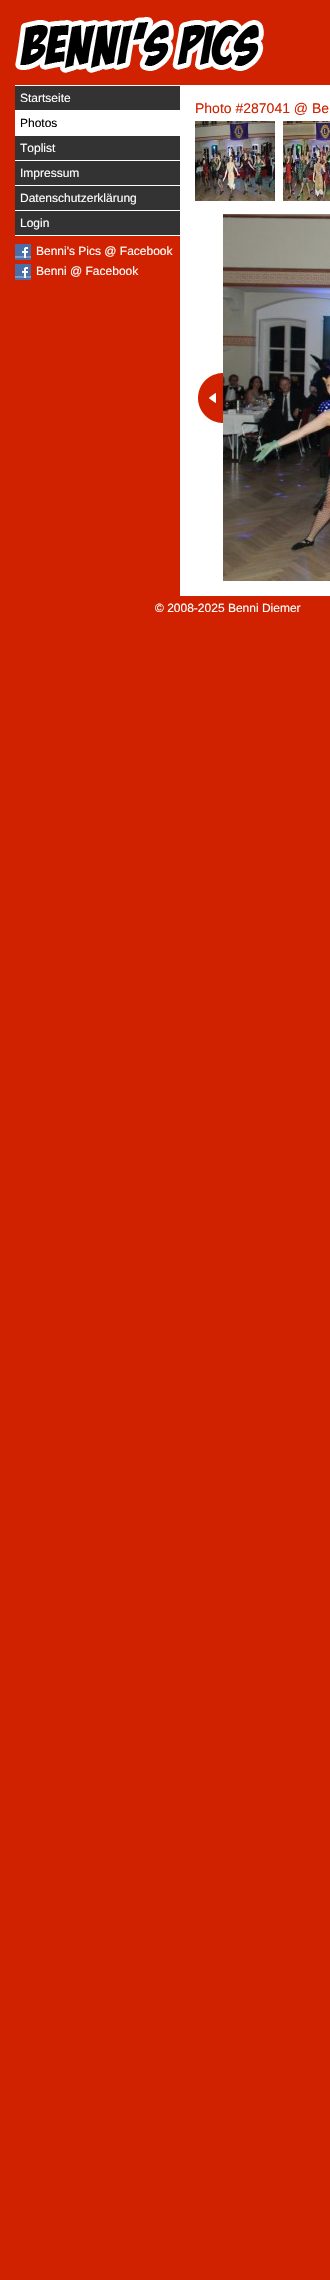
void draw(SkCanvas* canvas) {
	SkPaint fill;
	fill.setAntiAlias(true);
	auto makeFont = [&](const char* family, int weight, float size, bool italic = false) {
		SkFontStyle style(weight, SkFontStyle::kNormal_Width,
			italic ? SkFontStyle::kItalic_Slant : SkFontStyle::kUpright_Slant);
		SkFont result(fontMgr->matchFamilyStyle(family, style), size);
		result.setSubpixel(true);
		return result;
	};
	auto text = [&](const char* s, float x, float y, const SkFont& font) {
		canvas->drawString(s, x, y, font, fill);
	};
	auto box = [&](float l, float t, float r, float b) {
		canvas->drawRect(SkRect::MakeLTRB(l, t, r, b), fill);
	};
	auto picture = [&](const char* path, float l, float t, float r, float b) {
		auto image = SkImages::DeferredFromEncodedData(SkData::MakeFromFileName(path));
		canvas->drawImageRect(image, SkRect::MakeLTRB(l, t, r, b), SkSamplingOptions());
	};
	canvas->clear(0xFFD02200);
	picture("image0.png", 15, 17, 264, 73);
	fill.setColor(0xFF333333);
	box(15, 86, 180, 110);
	fill.setColor(0xFFFFFFFF);
	box(15, 85, 180, 86);
	box(15, 110, 180, 136);
	fill.setColor(0xFF333333);
	box(15, 136, 180, 160);
	fill.setColor(0xFFFFFFFF);
	box(15, 160, 180, 161);
	fill.setColor(0xFF333333);
	box(15, 161, 180, 185);
	fill.setColor(0xFFFFFFFF);
	box(15, 185, 180, 186);
	fill.setColor(0xFF333333);
	box(15, 186, 180, 210);
	fill.setColor(0xFFFFFFFF);
	box(15, 210, 180, 211);
	fill.setColor(0xFF333333);
	box(15, 211, 180, 235);
	fill.setColor(0xFFFFFFFF);
	box(15, 235, 180, 236);
	picture("image1.png", 15, 244, 31, 260);
	picture("image1.png", 15, 264, 31, 280);
	box(180, 85, 330, 596);
	picture("image2.png", 195, 121, 275, 201);
	picture("image3.png", 283, 121, 330, 201);
	picture("image4.png", 198, 373, 223, 423);
	picture("image5.png", 223, 214, 330, 581);
	auto font1 = makeFont("Liberation Sans", 400, 12);
	text("Startseite", 20, 102, font1);
	fill.setColor(0xFF000000);
	text("Photos", 20, 127, font1);
	fill.setColor(0xFFFFFFFF);
	text("Toplist", 20, 152, font1);
	text("Impressum", 20, 177, font1);
	text("Datenschutzerklärung", 20, 202, font1);
	text("Login", 20, 227, font1);
	text("Benni's Pics @ Facebook", 36, 255, font1);
	text("Benni @ Facebook", 36, 275, font1);
	auto font2 = makeFont("Liberation Sans", 400, 14);
	fill.setColor(0xFFD02200);
	text("Photo #287041 @ Be", 195, 113, font2);
	fill.setColor(0xFFFFFFFF);
	text("© 2008-2025 Benni Diemer", 155, 612, font1);
}
